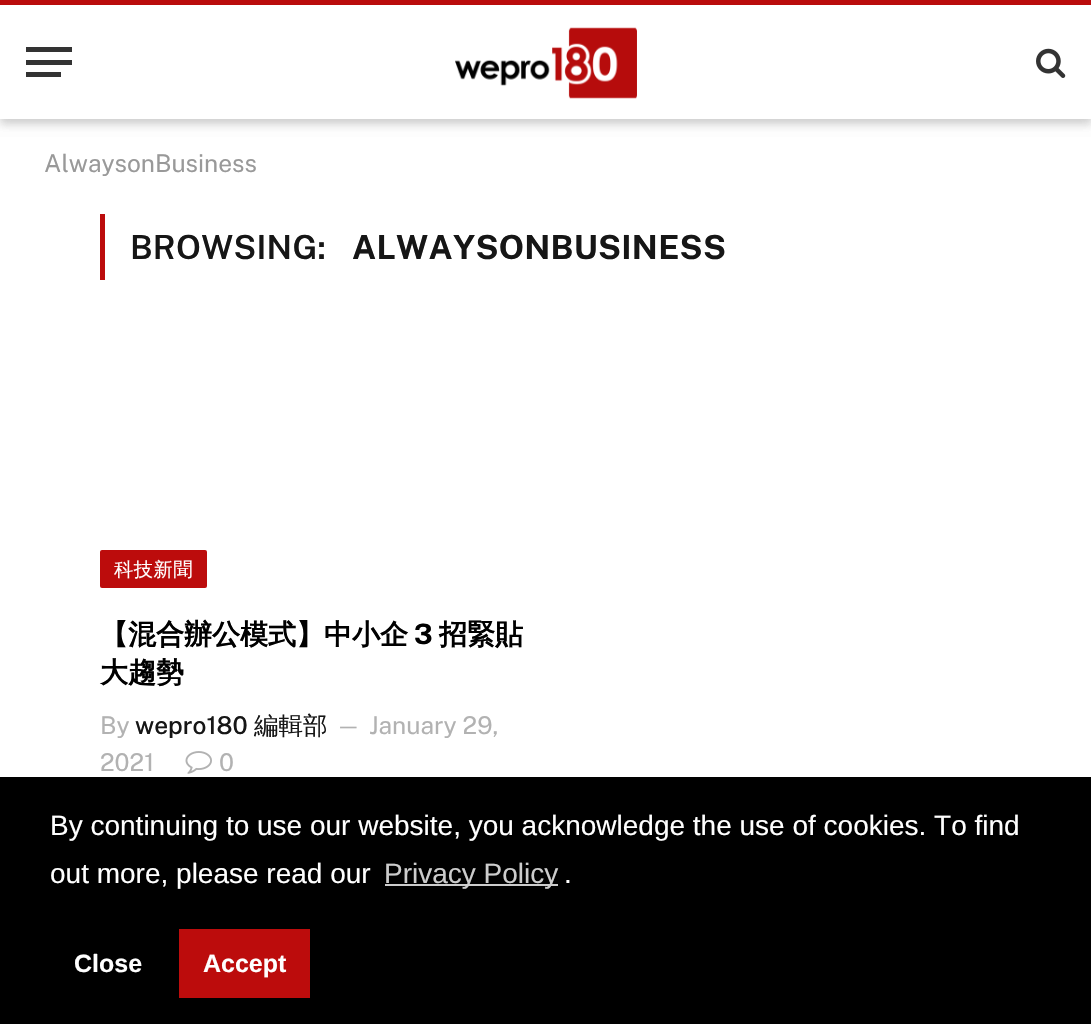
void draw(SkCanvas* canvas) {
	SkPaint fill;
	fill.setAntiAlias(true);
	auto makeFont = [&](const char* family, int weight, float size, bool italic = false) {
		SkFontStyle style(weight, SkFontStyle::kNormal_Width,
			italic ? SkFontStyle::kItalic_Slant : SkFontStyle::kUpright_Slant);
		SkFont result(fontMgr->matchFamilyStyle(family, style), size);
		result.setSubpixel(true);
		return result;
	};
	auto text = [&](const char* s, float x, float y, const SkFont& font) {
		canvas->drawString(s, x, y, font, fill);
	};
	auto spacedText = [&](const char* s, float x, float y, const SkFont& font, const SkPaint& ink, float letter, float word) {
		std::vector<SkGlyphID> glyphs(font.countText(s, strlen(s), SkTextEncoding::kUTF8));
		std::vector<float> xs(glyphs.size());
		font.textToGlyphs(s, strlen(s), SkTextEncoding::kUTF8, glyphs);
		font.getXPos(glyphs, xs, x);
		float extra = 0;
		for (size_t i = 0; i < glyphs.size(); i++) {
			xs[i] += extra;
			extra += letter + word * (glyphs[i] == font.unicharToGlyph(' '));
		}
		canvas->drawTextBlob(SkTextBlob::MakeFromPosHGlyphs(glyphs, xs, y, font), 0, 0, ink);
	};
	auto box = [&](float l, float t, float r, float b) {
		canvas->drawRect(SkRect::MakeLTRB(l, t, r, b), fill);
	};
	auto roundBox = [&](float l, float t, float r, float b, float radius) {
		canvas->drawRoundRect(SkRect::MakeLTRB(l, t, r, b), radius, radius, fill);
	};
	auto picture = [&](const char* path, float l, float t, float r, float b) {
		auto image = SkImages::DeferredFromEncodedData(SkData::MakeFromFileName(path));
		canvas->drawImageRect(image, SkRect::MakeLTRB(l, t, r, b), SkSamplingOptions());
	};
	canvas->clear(0xFFFFFFFF);
	fill.setColor(0xFFBC0C0C);
	box(0, 0, 1091, 5);
	fill.setColor(0x1A000000);
	fill.setMaskFilter(SkMaskFilter::MakeBlur(kNormal_SkBlurStyle, 4.5f));
	canvas->drawRect(SkRect::MakeLTRB(0, 11, 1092, 124), fill);
	fill.setMaskFilter(nullptr);
	fill.setMaskFilter(SkMaskFilter::MakeBlur(kNormal_SkBlurStyle, 4.5f));
	canvas->drawRect(SkRect::MakeLTRB(0, 11, 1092, 124), fill);
	fill.setMaskFilter(nullptr);
	fill.setColor(0xFFFFFFFF);
	box(0, 5, 1091, 119);
	fill.setColor(0xFF333333);
	box(26, 72, 61, 77);
	box(26, 47, 72, 52);
	box(26, 60, 72, 65);
	picture("image0.png", 455, 27, 637, 99);
	picture("image1.png", 1036, 48, 1066, 78);
	fill.setColor(0xFFBC0C0C);
	box(100, 214, 105, 280);
	roundBox(100, 550, 207, 588, 2);
	picture("image2.png", 185, 751, 212, 774);
	fill.setColor(0xFF000000);
	box(0, 777, 1091, 1024);
	fill.setColor(0xFFCCCCCC);
	box(385, 884, 558, 886);
	fill.setColor(0xFFBC0C0C);
	box(179, 929, 310, 998);
	auto font1 = makeFont("Public Sans", 400, 24.5f);
	fill.setColor(0xFF999999);
	text("AlwaysonBusiness", 44, 172, font1);
	auto font2 = makeFont("Public Sans", 600, 33.25f);
	fill.setColor(0xFF161616);
	spacedText("BROWSING:", 130, 259, font2, fill, 0.3f, 0);
	auto font3 = makeFont("Public Sans", 700, 33.25f);
	spacedText("ALWAYSONBUSINESS", 352, 259, font3, fill, 0.3f, 0);
	auto font4 = makeFont("WenQuanYi Zen Hei", 500, 19.25f);
	fill.setColor(0xFFFFFFFF);
	spacedText("科技新聞", 114, 576, font4, fill, 0.5f, 0);
	auto font5 = makeFont("WenQuanYi Zen Hei", 700, 28);
	fill.setColor(0xFF000000);
	text("【混合辦公模式】中小企", 100, 644, font5);
	auto font6 = makeFont("Public Sans", 700, 28);
	text("3", 414, 644, font6);
	text("招緊貼", 439, 644, font5);
	text("大趨勢", 100, 682, font5);
	auto font7 = makeFont("WenQuanYi Zen Hei", 500, 24.5f);
	fill.setColor(0xFF161616);
	text("編輯部", 254, 734, font7);
	auto font8 = makeFont("Public Sans", 400, 22);
	fill.setColor(0xFFB2B2B2);
	text("—", 336, 733, font8);
	text("January 29,", 369, 734, font1);
	text("2021", 100, 771, font1);
	text("By", 100, 734, font1);
	auto font9 = makeFont("Public Sans", 500, 24.5f);
	fill.setColor(0xFF161616);
	text("wepro180", 135, 734, font9);
	fill.setColor(0xFFB2B2B2);
	text("0", 219, 771, font1);
	auto font10 = makeFont("Liberation Sans", 400, 28);
	fill.setColor(0xFFFFFFFF);
	text("By continuing to use our website, you acknowledge the use of cookies. To find", 50, 835, font10);
	text("out more, please read our", 50, 883, font10);
	fill.setColor(0xFFCCCCCC);
	text("Privacy Policy", 384, 883, font10);
	fill.setColor(0xFFFFFFFF);
	text(".", 564, 883, font10);
	auto font11 = makeFont("Liberation Sans", 700, 25);
	text("Close", 74, 972, font11);
	text("Accept", 203, 972, font11);
}
